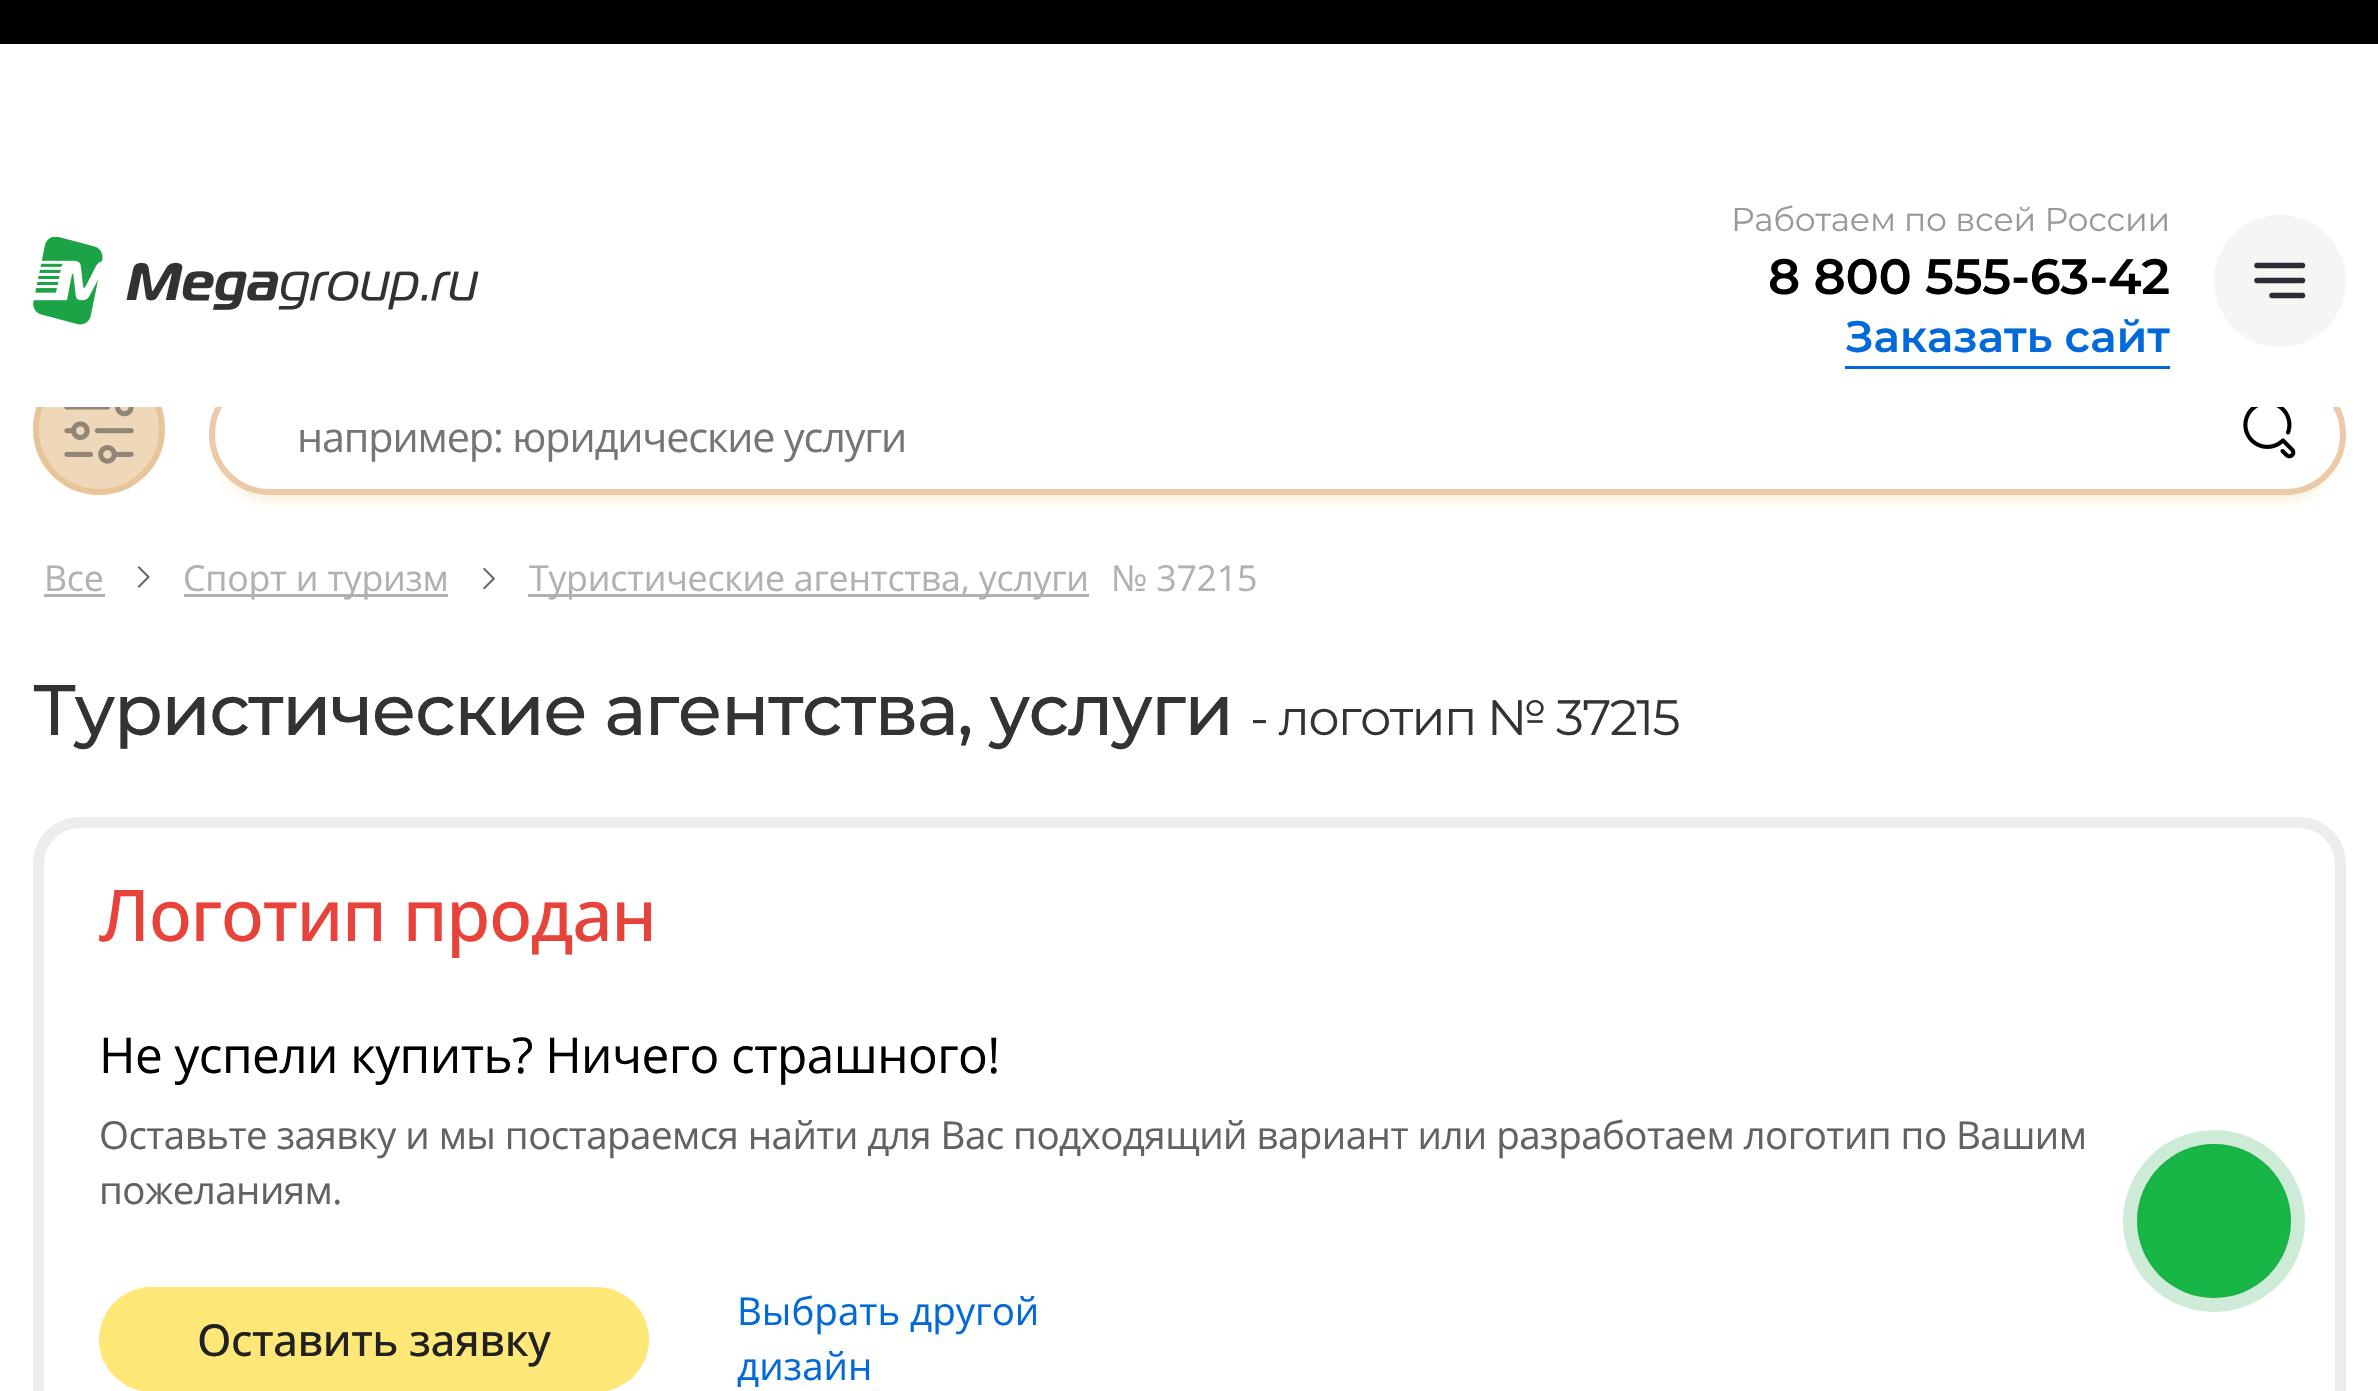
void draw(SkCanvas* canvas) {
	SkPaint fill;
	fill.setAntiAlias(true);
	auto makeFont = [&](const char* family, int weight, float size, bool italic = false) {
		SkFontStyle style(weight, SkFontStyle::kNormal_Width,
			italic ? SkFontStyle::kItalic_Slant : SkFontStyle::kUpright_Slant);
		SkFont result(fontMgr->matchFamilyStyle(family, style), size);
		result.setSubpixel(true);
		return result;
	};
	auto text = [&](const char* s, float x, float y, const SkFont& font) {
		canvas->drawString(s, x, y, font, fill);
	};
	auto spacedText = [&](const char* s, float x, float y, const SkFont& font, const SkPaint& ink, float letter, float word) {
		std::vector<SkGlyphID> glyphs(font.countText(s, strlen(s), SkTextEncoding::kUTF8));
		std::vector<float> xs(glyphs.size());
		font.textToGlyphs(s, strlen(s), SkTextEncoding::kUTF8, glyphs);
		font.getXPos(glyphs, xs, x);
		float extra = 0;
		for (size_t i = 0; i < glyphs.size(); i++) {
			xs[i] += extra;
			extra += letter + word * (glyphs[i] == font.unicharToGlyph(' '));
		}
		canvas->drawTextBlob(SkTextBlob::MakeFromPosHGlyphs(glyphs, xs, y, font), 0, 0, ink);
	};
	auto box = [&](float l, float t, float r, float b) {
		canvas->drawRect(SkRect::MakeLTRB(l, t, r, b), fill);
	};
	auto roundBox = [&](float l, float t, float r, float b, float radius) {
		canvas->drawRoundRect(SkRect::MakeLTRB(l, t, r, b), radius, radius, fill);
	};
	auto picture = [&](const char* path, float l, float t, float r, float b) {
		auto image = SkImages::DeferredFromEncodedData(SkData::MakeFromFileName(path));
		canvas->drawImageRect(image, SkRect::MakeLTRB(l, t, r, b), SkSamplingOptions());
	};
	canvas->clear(0xFFFFFFFF);
	fill.setColor(0xFF000000);
	box(0, 0, 2378, 44);
	fill.setColor(0xFFEFD8B9);
	canvas->drawCircle(99, 429, 63, fill);
	fill.setStyle(SkPaint::kStroke_Style);
	fill.setStrokeWidth(6);
	fill.setColor(0xFFE7C598);
	canvas->drawCircle(99, 429, 63, fill);
	fill.setStyle(SkPaint::kFill_Style);
	fill.setColor(0x45E9CD82);
	fill.setMaskFilter(SkMaskFilter::MakeBlur(kNormal_SkBlurStyle, 5.5f));
	canvas->drawRoundRect(SkRect::MakeLTRB(220, 402, 2335, 501), 49.5f, 49.5f, fill);
	fill.setMaskFilter(nullptr);
	fill.setColor(0xFFFFFFFF);
	canvas->drawRoundRect(SkRect::MakeLTRB(212, 377, 2343, 492), 57.5f, 57.5f, fill);
	fill.setStyle(SkPaint::kStroke_Style);
	fill.setColor(0xFFEBC9A9);
	canvas->drawRoundRect(SkRect::MakeLTRB(212, 377, 2343, 492), 57.5f, 57.5f, fill);
	fill.setStyle(SkPaint::kFill_Style);
	fill.setColor(0xFFFFFFFF);
	box(36, 363, 2340, 407);
	picture("image0.png", 33, 237, 479, 325);
	fill.setColor(0xFF0369D9);
	box(1845, 366, 2170, 369);
	fill.setColor(0xFFF5F5F5);
	canvas->drawCircle(2280, 281, 66, fill);
	fill.setStyle(SkPaint::kStroke_Style);
	fill.setStrokeWidth(5.5f);
	fill.setStrokeCap(SkPaint::kRound_Cap);
	fill.setStrokeJoin(SkPaint::kRound_Join);
	fill.setColor(0xFF2B2D33);
	canvas->drawPath(SkPathBuilder().moveTo(2257, 280.5f).lineTo(2302.5f, 280.5f).moveTo(2257, 265.5f).lineTo(2302.5f, 265.5f).moveTo(2272, 295.5f).lineTo(2302.5f, 295.5f).detach(), fill);
	picture("image1.png", 64, 407, 134, 464);
	picture("image2.png", 2243, 407, 2296, 459);
	fill.setStyle(SkPaint::kFill_Style);
	fill.setColor(0xFFB1B1B1);
	box(44, 594, 105, 597);
	picture("image3.png", 137, 566, 150, 588);
	box(184, 594, 448, 597);
	picture("image4.png", 483, 567, 495, 590);
	box(528, 594, 1089, 597);
	fill.setStyle(SkPaint::kStroke_Style);
	fill.setStrokeWidth(11);
	fill.setStrokeCap(SkPaint::kButt_Cap);
	fill.setStrokeJoin(SkPaint::kMiter_Join);
	fill.setColor(0xFFEDEDED);
	canvas->drawRoundRect(SkRect::MakeLTRB(38.5f, 822.5f, 2340.5f, 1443.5f), 41.5f, 41.5f, fill);
	fill.setStyle(SkPaint::kFill_Style);
	fill.setColor(0xFFFFE877);
	roundBox(99, 1287, 649, 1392, 52.5f);
	fill.setColor(0xFF15BB47);
	canvas->drawCircle(2214, 1221, 77, fill);
	fill.setColor(0x381CA345);
	canvas->drawCircle(2214, 1221, 91, fill);
	fill.setStyle(SkPaint::kStroke_Style);
	fill.setStrokeWidth(3);
	canvas->drawCircle(2214, 1221, 75.5f, fill);
	auto font1 = makeFont("Montserrat", 400, 33);
	fill.setStyle(SkPaint::kFill_Style);
	fill.setColor(0xFF999999);
	spacedText("Работаем по всей России", 1731, 231, font1, fill, -0.25f, 0);
	auto font2 = makeFont("Montserrat", 600, 49.5f);
	fill.setColor(0xFF000000);
	spacedText("8 800 555-63-42", 1768, 294, font2, fill, -0.25f, 0);
	auto font3 = makeFont("Montserrat", 600, 44);
	fill.setColor(0xFF0169D9);
	text("Заказать сайт", 1845, 352, font3);
	auto font4 = makeFont("Open Sans", 400, 41.25f);
	fill.setColor(0xFF757575);
	spacedText("например: юридические услуги", 297, 452, font4, fill, -1.1f, 0);
	auto font5 = makeFont("Open Sans", 400, 35.75f);
	fill.setColor(0xFFB1B1B1);
	spacedText("Все", 44, 591, font5, fill, -0.25f, 0);
	spacedText("Спорт и туризм", 183, 591, font5, fill, -0.25f, 0);
	spacedText("Туристические агентства, услуги", 529, 591, font5, fill, -0.25f, 0);
	spacedText("№ 37215", 1111, 591, font5, fill, -0.25f, 0);
	auto font6 = makeFont("Montserrat", 500, 71.5f);
	fill.setColor(0xFF333333);
	spacedText("Туристические агентства, услуги", 33, 735, font6, fill, -1.65f, 0);
	auto font7 = makeFont("Montserrat", 400, 49.5f);
	spacedText("- логотип № 37215", 1250, 735, font7, fill, -1.65f, 0);
	auto font8 = makeFont("Open Sans", 500, 71.5f);
	fill.setColor(0xFFE7433A);
	spacedText("Логотип продан", 99, 941, font8, fill, -1.4f, 0);
	auto font9 = makeFont("Open Sans", 400, 49.5f);
	fill.setColor(0xFF000000);
	spacedText("Не успели купить? Ничего страшного!", 99, 1073, font9, fill, -0.55f, 0);
	auto font10 = makeFont("Open Sans", 400, 38.5f);
	fill.setColor(0xFF626262);
	spacedText("Оставьте заявку и мы постараемся найти для Вас подходящий вариант или разработаем логотип по Вашим", 99, 1149, font10, fill, -0.55f, 0);
	spacedText("пожеланиям.", 99, 1204, font10, fill, -0.55f, 0);
	auto font11 = makeFont("Open Sans", 500, 44);
	fill.setColor(0xFF212121);
	spacedText("Оставить заявку", 197, 1356, font11, fill, -0.5f, 0);
	fill.setColor(0xFF0169D9);
	text("Выбрать другой", 737, 1325, font10);
	text("дизайн", 737, 1380, font10);
}
